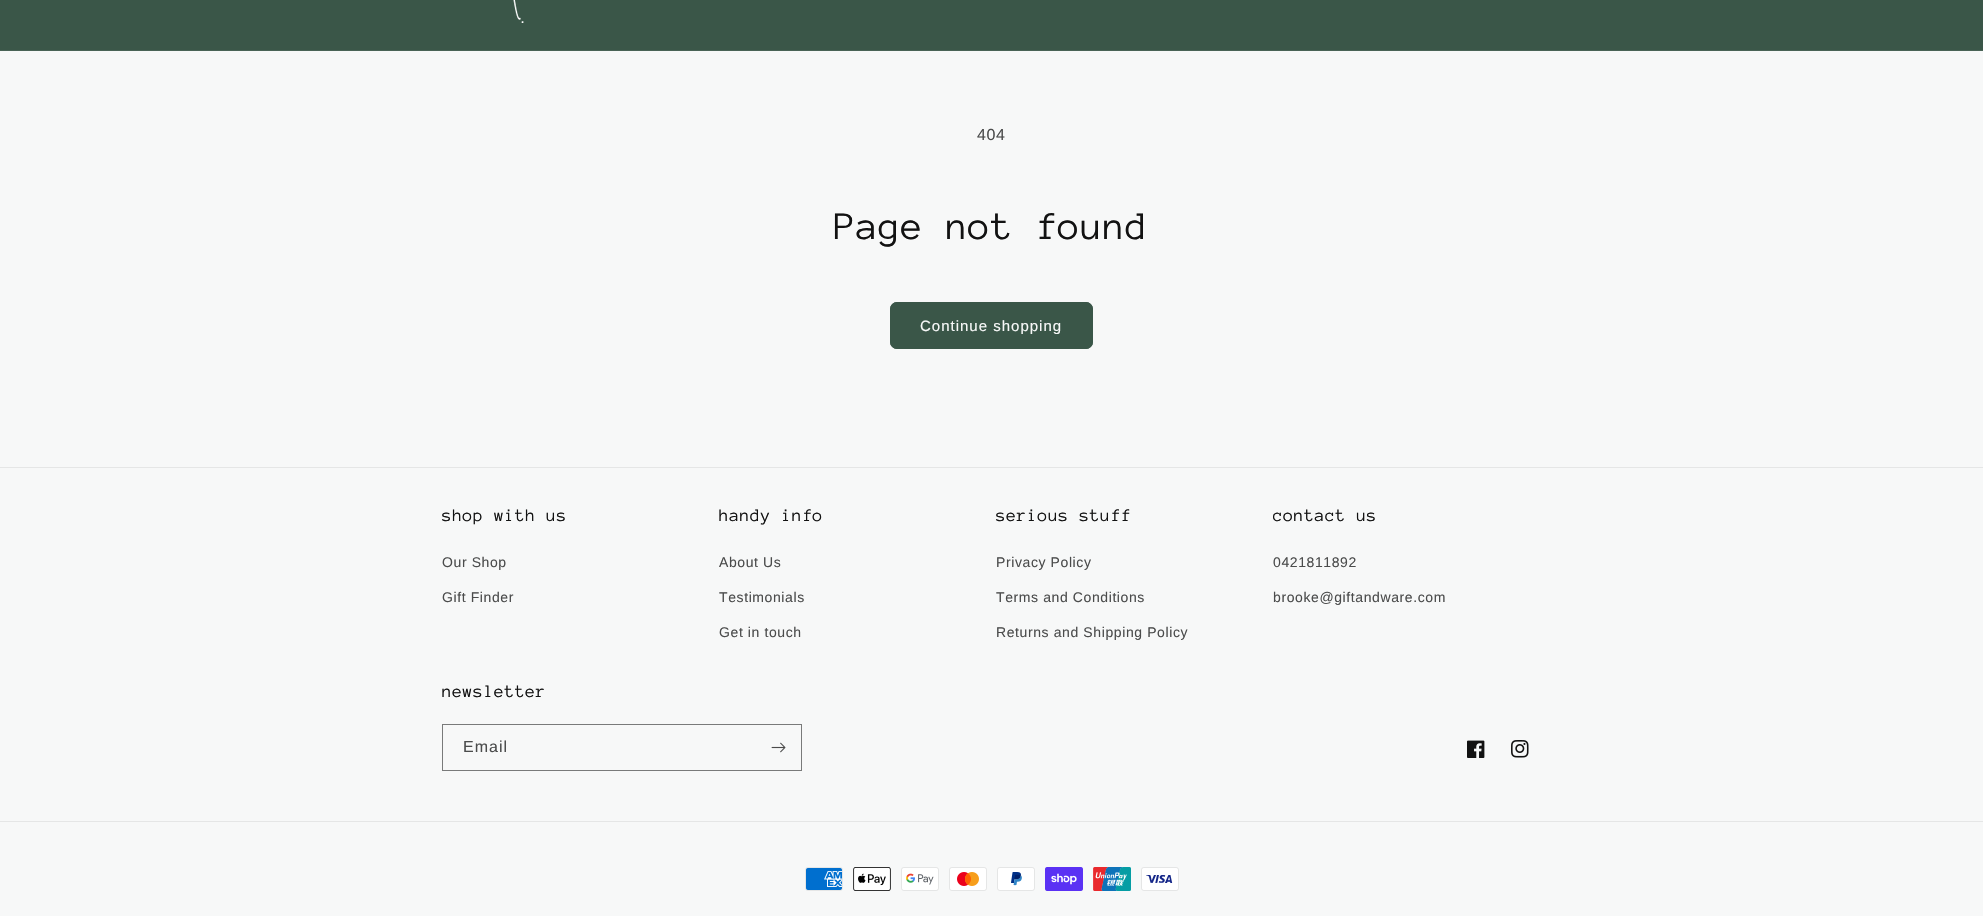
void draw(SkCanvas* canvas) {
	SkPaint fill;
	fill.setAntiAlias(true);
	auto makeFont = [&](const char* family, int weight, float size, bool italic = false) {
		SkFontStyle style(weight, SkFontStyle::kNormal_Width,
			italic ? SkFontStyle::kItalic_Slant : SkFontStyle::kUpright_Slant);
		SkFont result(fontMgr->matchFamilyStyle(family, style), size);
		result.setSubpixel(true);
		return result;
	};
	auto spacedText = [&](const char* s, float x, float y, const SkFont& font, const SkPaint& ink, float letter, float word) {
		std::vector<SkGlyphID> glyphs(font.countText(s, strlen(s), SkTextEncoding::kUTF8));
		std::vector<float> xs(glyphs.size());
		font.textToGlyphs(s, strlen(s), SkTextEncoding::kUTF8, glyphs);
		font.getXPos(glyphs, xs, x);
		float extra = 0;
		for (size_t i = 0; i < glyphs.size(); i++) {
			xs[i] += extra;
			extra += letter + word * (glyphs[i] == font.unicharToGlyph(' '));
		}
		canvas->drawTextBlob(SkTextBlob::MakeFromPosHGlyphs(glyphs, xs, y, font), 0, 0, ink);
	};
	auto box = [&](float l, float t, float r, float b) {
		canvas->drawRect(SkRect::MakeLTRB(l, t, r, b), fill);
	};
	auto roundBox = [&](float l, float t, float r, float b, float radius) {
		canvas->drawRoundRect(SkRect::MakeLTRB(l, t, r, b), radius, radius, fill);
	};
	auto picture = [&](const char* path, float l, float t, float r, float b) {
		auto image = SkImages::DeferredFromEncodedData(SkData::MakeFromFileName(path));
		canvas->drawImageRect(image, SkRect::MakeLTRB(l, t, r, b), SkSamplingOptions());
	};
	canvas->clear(0xFFF7F8F8);
	fill.setColor(0xFF3A5648);
	box(0, 0, 1983, 50);
	fill.setColor(0xFF496356);
	box(0, 50, 1983, 51);
	picture("image0.png", 513, 0, 524, 23);
	fill.setColor(0xFF3A5648);
	roundBox(890, 302, 1093, 349, 7);
	fill.setStyle(SkPaint::kStroke_Style);
	fill.setStrokeWidth(1);
	canvas->drawRoundRect(SkRect::MakeLTRB(890.5f, 302.5f, 1092.5f, 348.5f), 6.5f, 6.5f, fill);
	fill.setStyle(SkPaint::kFill_Style);
	fill.setColor(0xFFE5E6E6);
	box(0, 467, 1983, 468);
	fill.setStyle(SkPaint::kStroke_Style);
	fill.setColor(0xFF797A7A);
	canvas->drawRect(SkRect::MakeLTRB(442.5f, 724.5f, 801.5f, 770.5f), fill);
	picture("image1.png", 771, 742, 786, 753);
	picture("image2.png", 1467, 740, 1485, 758);
	picture("image3.png", 1511, 740, 1529, 758);
	fill.setStyle(SkPaint::kFill_Style);
	fill.setColor(0xFFE5E6E6);
	box(0, 821, 1983, 822);
	picture("image4.png", 805, 867, 843, 891);
	picture("image5.png", 853, 867, 891, 891);
	picture("image6.png", 901, 867, 939, 891);
	picture("image7.png", 949, 867, 987, 891);
	picture("image8.png", 997, 867, 1035, 891);
	picture("image9.png", 1045, 867, 1083, 891);
	picture("image10.png", 1093, 867, 1131, 891);
	picture("image11.png", 1141, 867, 1179, 891);
	auto font1 = makeFont("Liberation Sans", 400, 16);
	fill.setColor(0xFF4B4C4C);
	spacedText("404", 977, 140, font1, fill, 0.6f, 0);
	auto font2 = makeFont("Anonymous Pro", 400, 40);
	fill.setColor(0xFF121212);
	spacedText("Page not found", 834, 239, font2, fill, 0.6f, 0);
	auto font3 = makeFont("Liberation Sans", 400, 15);
	fill.setColor(0xFFF7F8F8);
	spacedText("Continue shopping", 920, 331, font3, fill, 1, 0);
	auto font4 = makeFont("Anonymous Pro", 400, 18);
	fill.setColor(0xFF121212);
	spacedText("shop with us", 442, 521, font4, fill, 0.6f, 0);
	auto font5 = makeFont("Liberation Sans", 400, 14);
	fill.setColor(0xFF4B4C4C);
	spacedText("Our Shop", 442, 567, font5, fill, 0.6f, 0);
	spacedText("Gift Finder", 442, 602, font5, fill, 0.6f, 0);
	fill.setColor(0xFF121212);
	spacedText("handy info", 719, 521, font4, fill, 0.6f, 0);
	fill.setColor(0xFF4B4C4C);
	spacedText("About Us", 719, 567, font5, fill, 0.6f, 0);
	spacedText("Testimonials", 719, 602, font5, fill, 0.6f, 0);
	spacedText("Get in touch", 719, 637, font5, fill, 0.6f, 0);
	fill.setColor(0xFF121212);
	spacedText("serious stuff", 996, 521, font4, fill, 0.6f, 0);
	fill.setColor(0xFF4B4C4C);
	spacedText("Privacy Policy", 996, 567, font5, fill, 0.6f, 0);
	spacedText("Terms and Conditions", 996, 602, font5, fill, 0.6f, 0);
	spacedText("Returns and Shipping Policy", 996, 637, font5, fill, 0.6f, 0);
	fill.setColor(0xFF121212);
	spacedText("contact us", 1273, 521, font4, fill, 0.6f, 0);
	fill.setColor(0xFF4B4C4C);
	spacedText("0421811892", 1273, 567, font5, fill, 0.6f, 0);
	spacedText("brooke@giftandware.com", 1273, 602, font5, fill, 0.6f, 0);
	fill.setColor(0xFF121212);
	spacedText("newsletter", 442, 697, font4, fill, 0.6f, 0);
	fill.setColor(0xFF4B4C4C);
	spacedText("Email", 463, 752, font1, fill, 1, 0);
}
